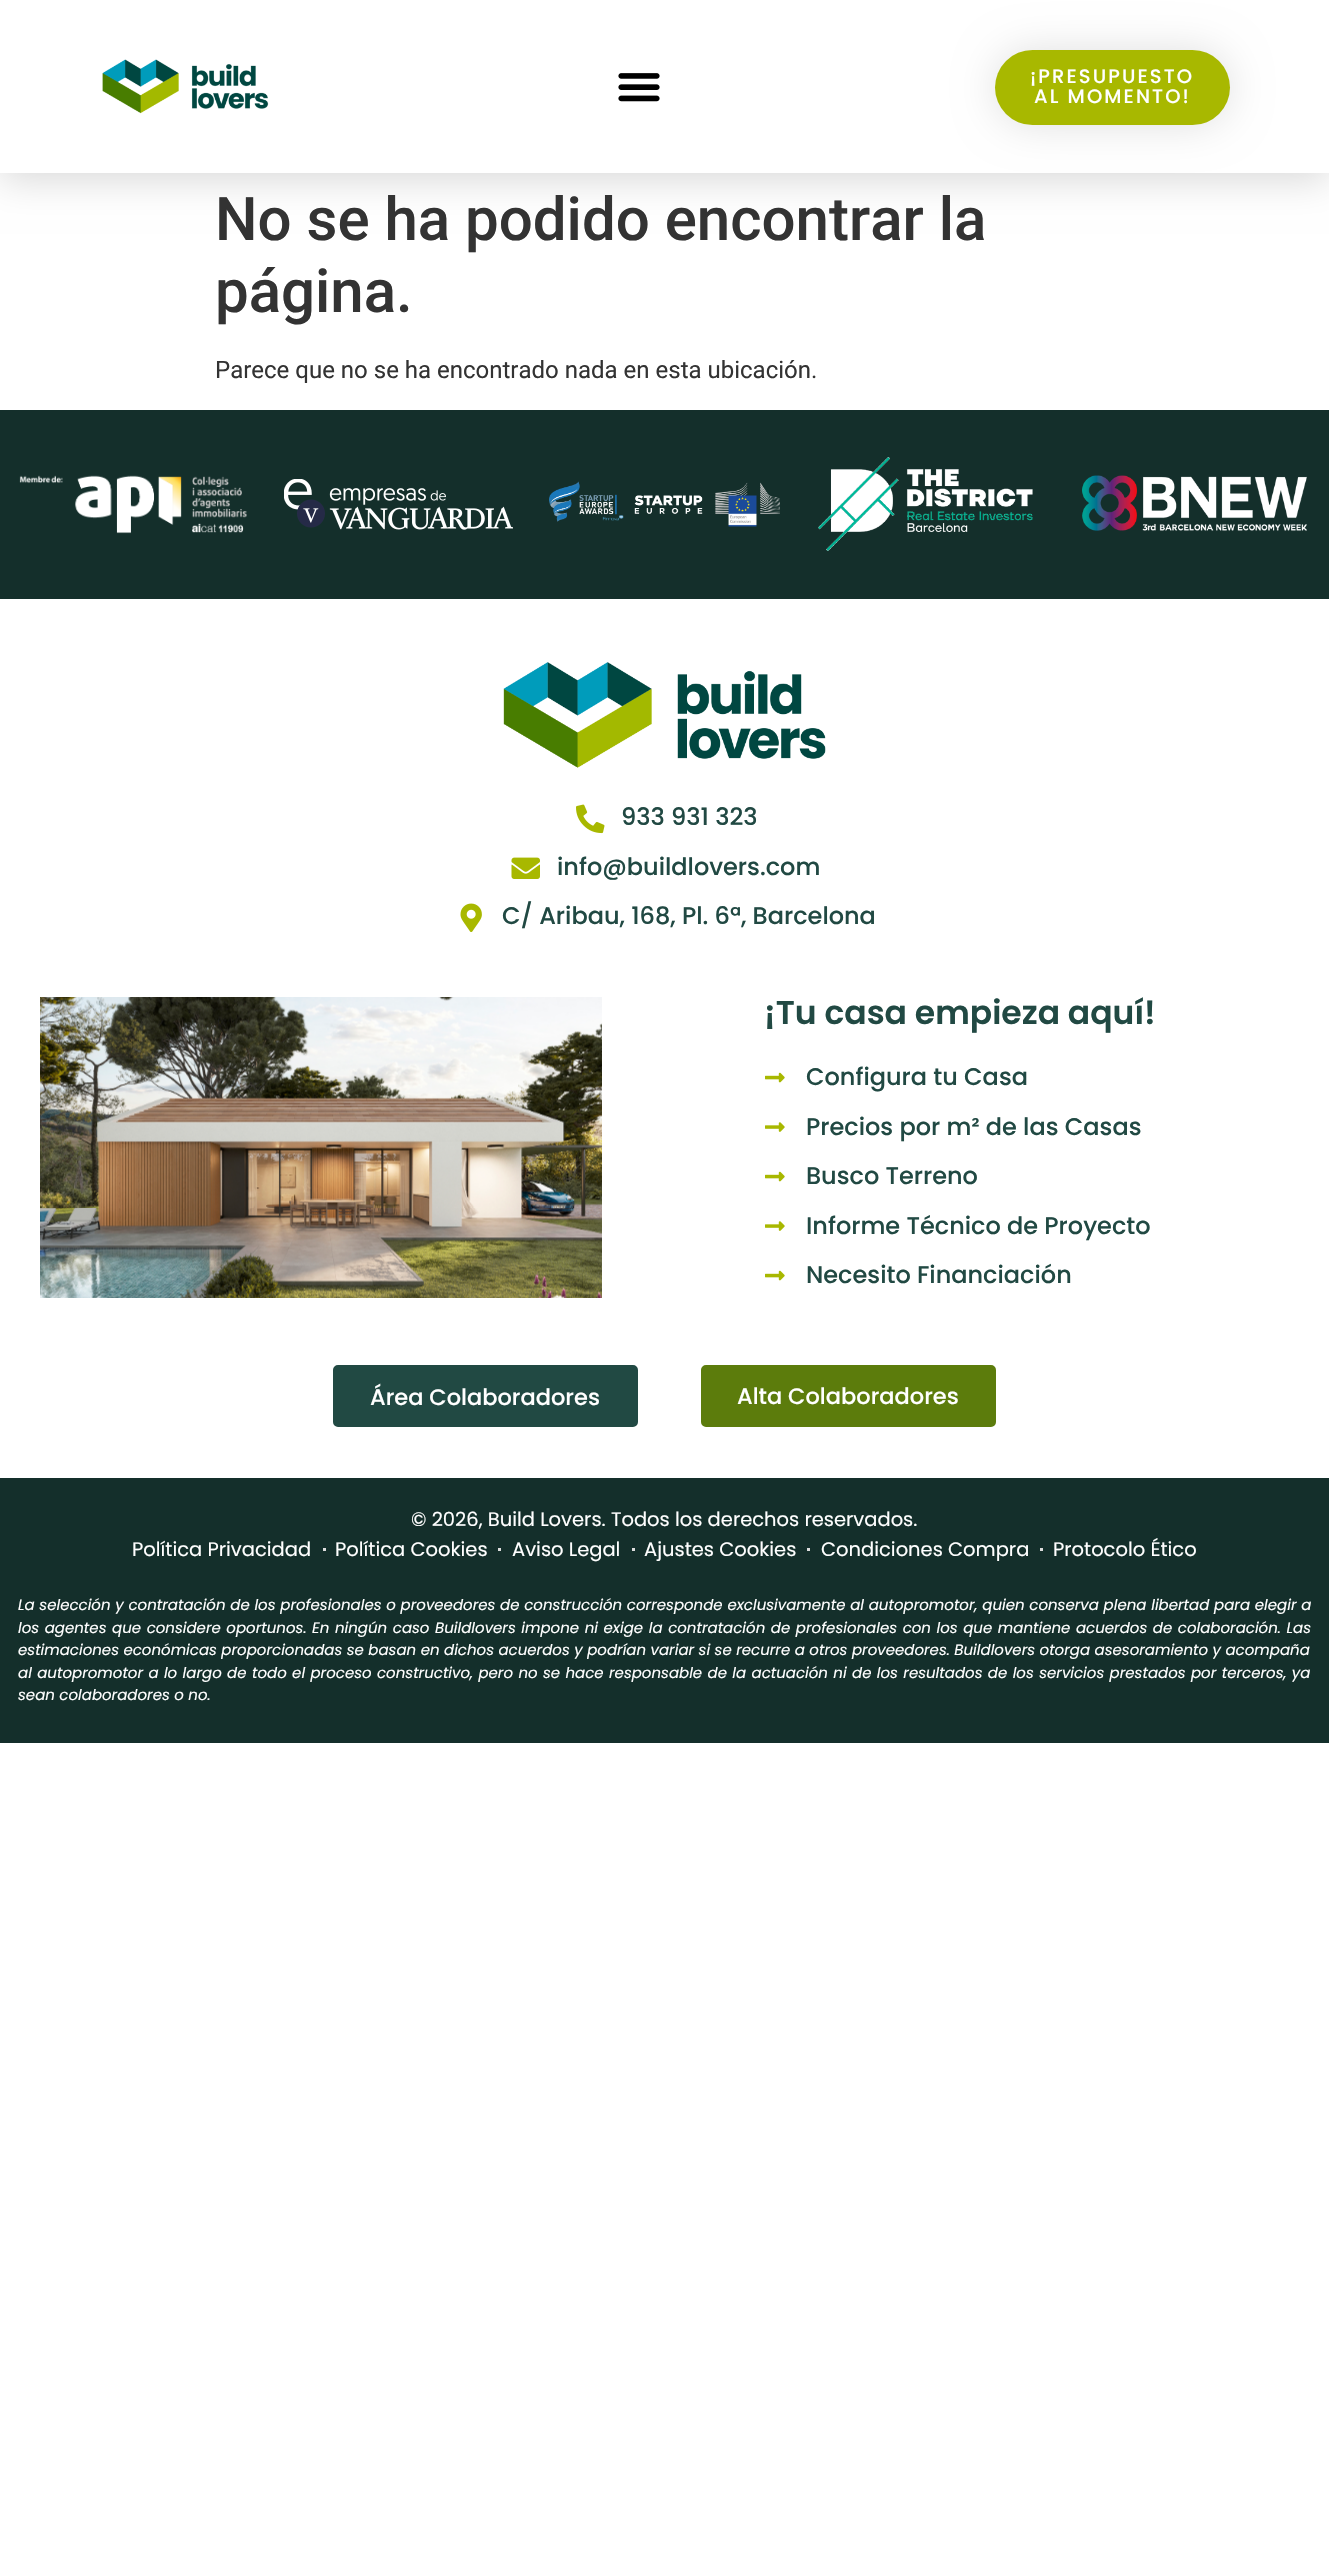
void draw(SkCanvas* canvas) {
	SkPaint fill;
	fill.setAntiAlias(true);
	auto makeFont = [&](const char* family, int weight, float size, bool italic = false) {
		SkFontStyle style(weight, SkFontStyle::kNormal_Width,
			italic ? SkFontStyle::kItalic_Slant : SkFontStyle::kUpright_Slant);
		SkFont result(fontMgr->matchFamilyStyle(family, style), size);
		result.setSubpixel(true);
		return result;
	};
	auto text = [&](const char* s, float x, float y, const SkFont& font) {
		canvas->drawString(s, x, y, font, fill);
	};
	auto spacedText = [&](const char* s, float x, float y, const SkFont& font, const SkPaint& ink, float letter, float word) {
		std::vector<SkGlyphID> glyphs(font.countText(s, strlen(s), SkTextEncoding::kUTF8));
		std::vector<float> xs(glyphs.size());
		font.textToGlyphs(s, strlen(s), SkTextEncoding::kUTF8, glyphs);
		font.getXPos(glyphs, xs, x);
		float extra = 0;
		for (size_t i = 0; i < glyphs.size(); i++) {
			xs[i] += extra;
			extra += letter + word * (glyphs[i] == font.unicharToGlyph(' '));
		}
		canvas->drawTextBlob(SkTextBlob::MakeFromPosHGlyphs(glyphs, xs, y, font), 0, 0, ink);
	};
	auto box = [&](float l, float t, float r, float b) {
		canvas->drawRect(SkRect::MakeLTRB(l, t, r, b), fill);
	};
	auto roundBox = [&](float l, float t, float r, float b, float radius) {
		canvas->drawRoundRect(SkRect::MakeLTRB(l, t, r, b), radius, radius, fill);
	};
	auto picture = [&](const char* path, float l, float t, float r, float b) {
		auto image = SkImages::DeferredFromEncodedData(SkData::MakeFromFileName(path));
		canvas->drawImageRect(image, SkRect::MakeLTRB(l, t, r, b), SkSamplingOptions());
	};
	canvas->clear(0xFFFFFFFF);
	fill.setColor(0x26000000);
	fill.setMaskFilter(SkMaskFilter::MakeBlur(kNormal_SkBlurStyle, 18));
	canvas->drawRect(SkRect::MakeLTRB(0, 8, 1329, 180), fill);
	fill.setMaskFilter(nullptr);
	fill.setColor(0xFFFFFFFF);
	box(0, 0, 1329, 173);
	picture("image0.png", 102, 59, 269, 114);
	picture("image1.png", 618, 73, 660, 102);
	fill.setColor(0x1F000000);
	fill.setMaskFilter(SkMaskFilter::MakeBlur(kNormal_SkBlurStyle, 20));
	canvas->drawRoundRect(SkRect::MakeLTRB(995, 50, 1230, 125), 37.5f, 37.5f, fill);
	fill.setMaskFilter(nullptr);
	fill.setColor(0xFFA8B800);
	roundBox(995, 50, 1230, 125, 37.5f);
	fill.setColor(0xFF142F2B);
	box(0, 410, 1329, 599);
	picture("image2.png", 19, 475, 247, 534);
	picture("image3.png", 284, 479, 513, 530);
	picture("image4.png", 549, 481, 780, 527);
	picture("image5.png", 818, 457, 1033, 551);
	picture("image6.png", 1082, 475, 1307, 531);
	picture("image7.png", 503, 662, 826, 768);
	picture("image8.png", 576, 804, 605, 834);
	picture("image9.png", 511, 857, 540, 879);
	picture("image10.png", 460, 903, 482, 932);
	picture("image11.png", 40, 997, 602, 1298);
	picture("image12.png", 765, 1072, 785, 1083);
	picture("image13.png", 765, 1122, 785, 1132);
	picture("image12.png", 765, 1171, 785, 1182);
	picture("image13.png", 765, 1221, 785, 1231);
	picture("image12.png", 765, 1270, 785, 1281);
	fill.setColor(0xFF214943);
	canvas->drawRoundRect(SkRect::MakeLTRB(334, 1366, 637, 1426), 4, 4, fill);
	fill.setStyle(SkPaint::kStroke_Style);
	fill.setStrokeWidth(2);
	canvas->drawRoundRect(SkRect::MakeLTRB(334, 1366, 637, 1426), 4, 4, fill);
	fill.setStyle(SkPaint::kFill_Style);
	fill.setColor(0xFF5C7C0C);
	canvas->drawRoundRect(SkRect::MakeLTRB(702, 1366, 995, 1426), 4, 4, fill);
	fill.setStyle(SkPaint::kStroke_Style);
	canvas->drawRoundRect(SkRect::MakeLTRB(702, 1366, 995, 1426), 4, 4, fill);
	fill.setStyle(SkPaint::kFill_Style);
	fill.setColor(0xFF142F2B);
	box(0, 1478, 1329, 1743);
	fill.setColor(0xFFDDDDDD);
	box(323, 1548, 326, 1551);
	box(498, 1548, 501, 1551);
	box(632, 1548, 635, 1551);
	box(807, 1548, 810, 1551);
	box(1040, 1548, 1043, 1551);
	auto font1 = makeFont("Poppins", 500, 19.5f);
	fill.setColor(0xFFFFFFFF);
	spacedText("¡PRESUPUESTO", 1030, 83, font1, fill, 2.1f, 0);
	spacedText("AL MOMENTO!", 1034, 103, font1, fill, 2.1f, 0);
	auto font2 = makeFont("Roboto", 500, 60);
	fill.setColor(0xFF333333);
	text("No se ha podido encontrar la", 215, 240, font2);
	text("página.", 215, 312, font2);
	auto font3 = makeFont("Roboto", 400, 24);
	text("Parece que no se ha encontrado nada en esta ubicación.", 215, 378, font3);
	auto font4 = makeFont("Poppins", 500, 24);
	fill.setColor(0xFF214943);
	text("933 931 323", 621, 825, font4);
	text("info@buildlovers.com", 557, 875, font4);
	text("C/ Aribau, 168, Pl. 6ª, Barcelona", 502, 924, font4);
	auto font5 = makeFont("Poppins", 600, 33);
	text("¡Tu casa empieza aquí!", 764, 1024, font5);
	text("Configura tu Casa", 806, 1085, font4);
	text("Precios por m² de las Casas", 806, 1135, font4);
	text("Busco Terreno", 806, 1184, font4);
	text("Informe Técnico de Proyecto", 806, 1234, font4);
	text("Necesito Financiación", 806, 1283, font4);
	auto font6 = makeFont("Poppins", 500, 22.5f);
	fill.setColor(0xFFFFFFFF);
	text("Área Colaboradores", 370, 1405, font6);
	text("Alta Colaboradores", 737, 1404, font6);
	auto font7 = makeFont("Poppins", 400, 19.5f);
	text("© 2026, Build Lovers. Todos los derechos reservados.", 411, 1526, font7);
	text("Política Privacidad", 132, 1556, font7);
	text("Política Cookies", 335, 1556, font7);
	text("Aviso Legal", 512, 1556, font7);
	text("Ajustes Cookies", 644, 1556, font7);
	text("Condiciones Compra", 821, 1556, font7);
	text("Protocolo Ético", 1053, 1556, font7);
	auto font8 = makeFont("Poppins", 400, 15, true);
	spacedText("La selección y contratación de los profesionales o proveedores de construcción corresponde exclusivamente al autopromotor, quien conserva plena libertad para elegir a", 18, 1610, font8, fill, 0, 0.25f);
	spacedText("los agentes que considere oportunos. En ningún caso Buildlovers impone ni exige la contratación de profesionales con los que mantiene acuerdos de colaboración. Las", 18, 1633, font8, fill, 0, 1.1f);
	text("estimaciones económicas proporcionadas se basan en dichos acuerdos y podrían variar si se recurre a otros proveedores. Buildlovers otorga asesoramiento y acompaña", 18, 1655, font8);
	spacedText("al autopromotor a lo largo de todo el proceso constructivo, pero no se hace responsable de la actuación ni de los resultados de los servicios prestados por terceros, ya", 18, 1678, font8, fill, 0, 0.9f);
	text("sean colaboradores o no.", 18, 1700, font8);
}
